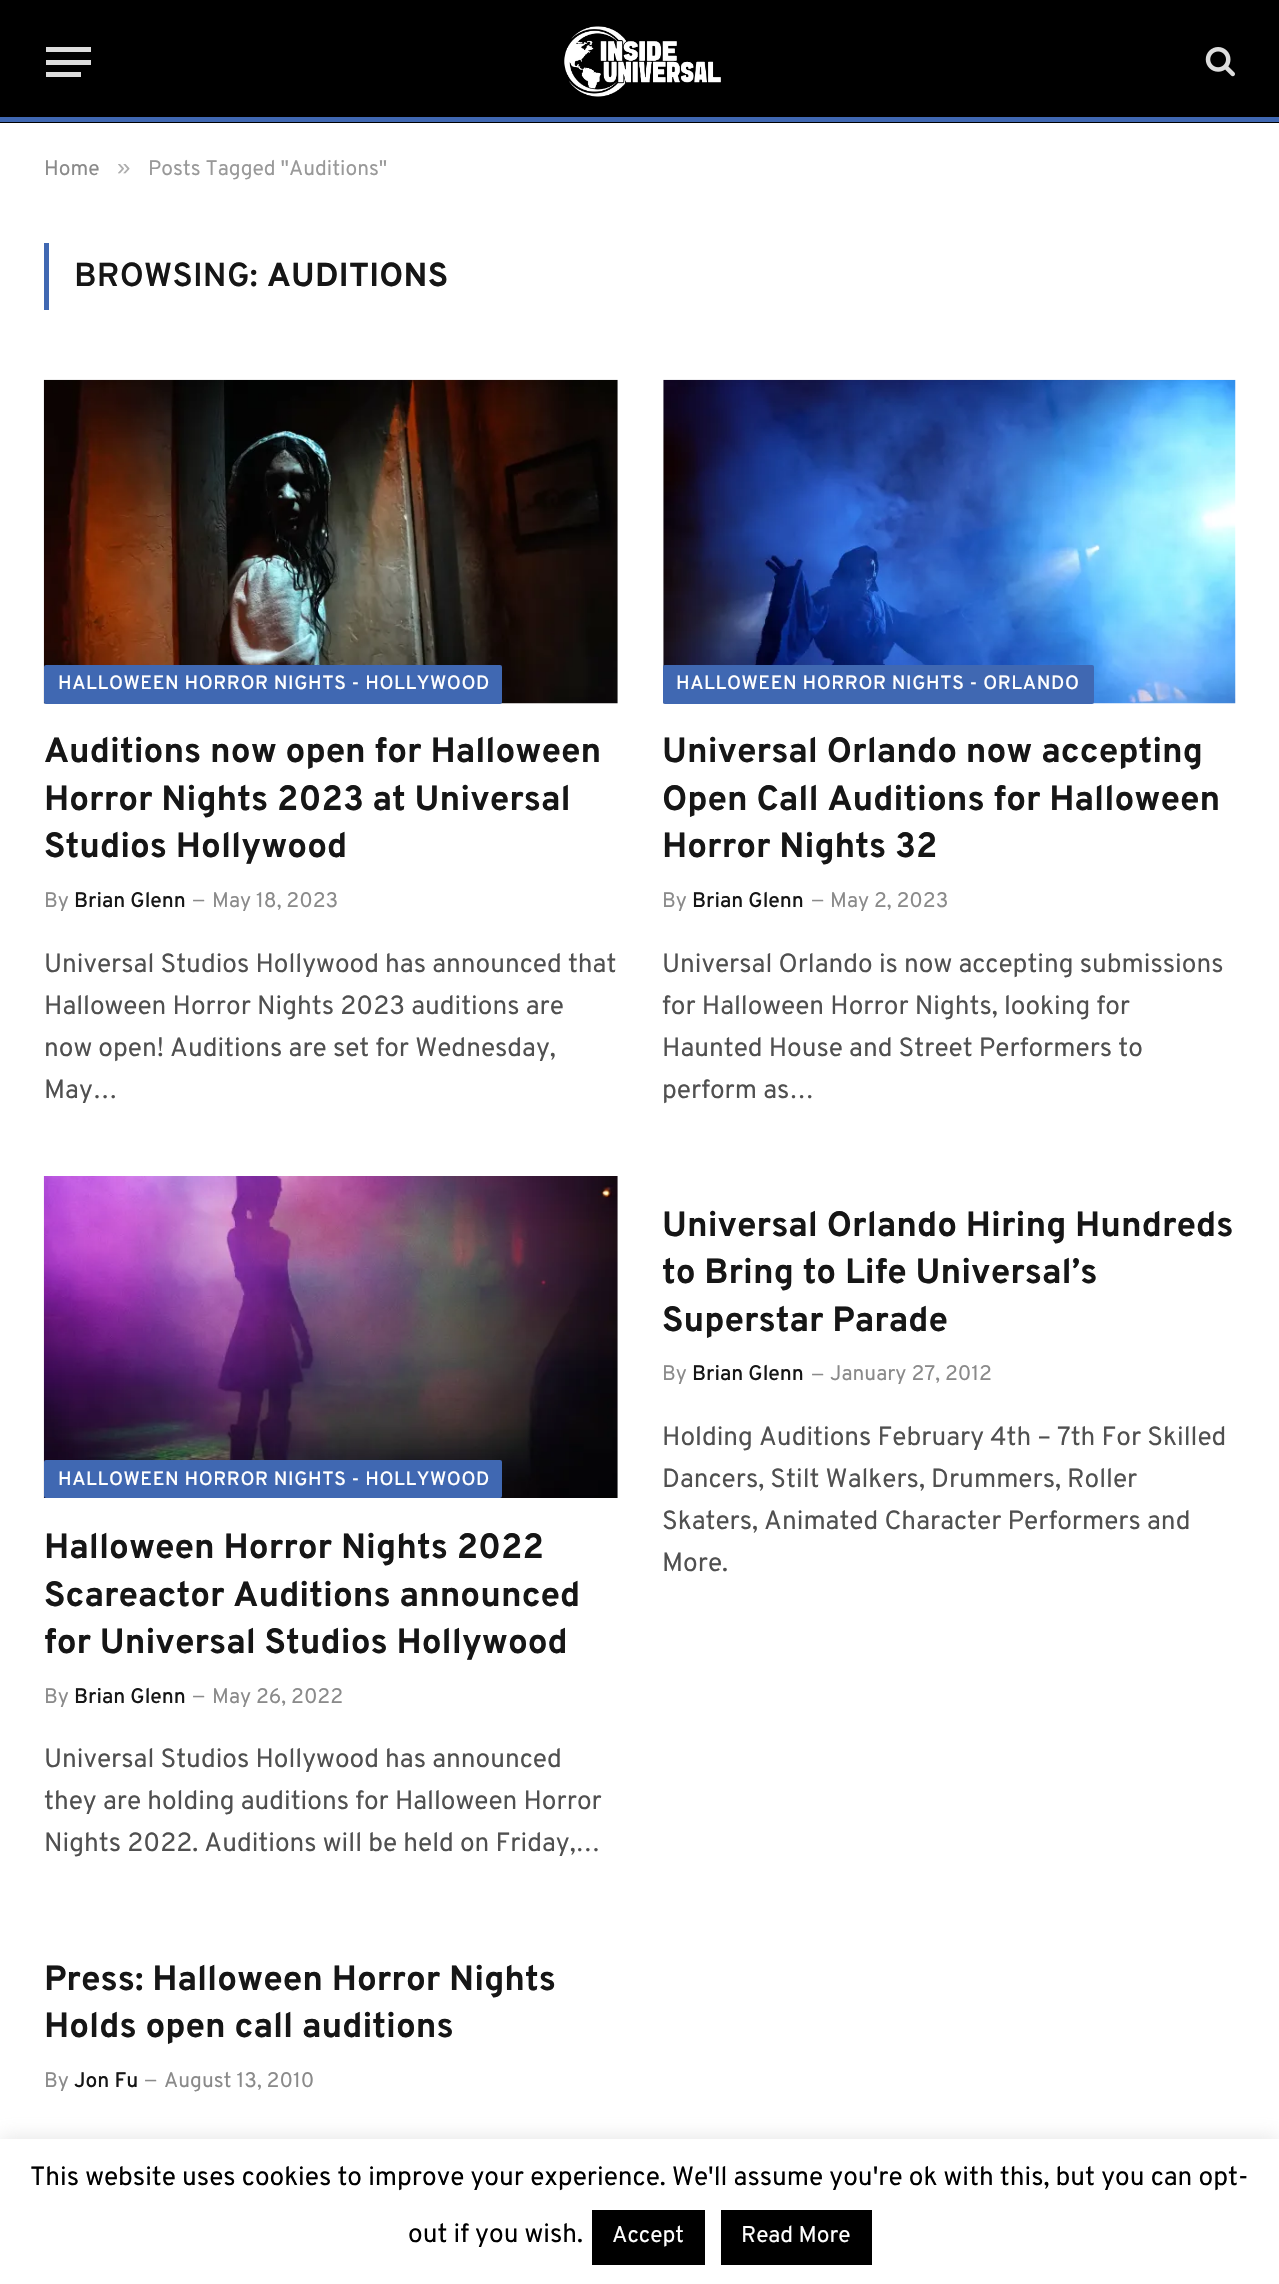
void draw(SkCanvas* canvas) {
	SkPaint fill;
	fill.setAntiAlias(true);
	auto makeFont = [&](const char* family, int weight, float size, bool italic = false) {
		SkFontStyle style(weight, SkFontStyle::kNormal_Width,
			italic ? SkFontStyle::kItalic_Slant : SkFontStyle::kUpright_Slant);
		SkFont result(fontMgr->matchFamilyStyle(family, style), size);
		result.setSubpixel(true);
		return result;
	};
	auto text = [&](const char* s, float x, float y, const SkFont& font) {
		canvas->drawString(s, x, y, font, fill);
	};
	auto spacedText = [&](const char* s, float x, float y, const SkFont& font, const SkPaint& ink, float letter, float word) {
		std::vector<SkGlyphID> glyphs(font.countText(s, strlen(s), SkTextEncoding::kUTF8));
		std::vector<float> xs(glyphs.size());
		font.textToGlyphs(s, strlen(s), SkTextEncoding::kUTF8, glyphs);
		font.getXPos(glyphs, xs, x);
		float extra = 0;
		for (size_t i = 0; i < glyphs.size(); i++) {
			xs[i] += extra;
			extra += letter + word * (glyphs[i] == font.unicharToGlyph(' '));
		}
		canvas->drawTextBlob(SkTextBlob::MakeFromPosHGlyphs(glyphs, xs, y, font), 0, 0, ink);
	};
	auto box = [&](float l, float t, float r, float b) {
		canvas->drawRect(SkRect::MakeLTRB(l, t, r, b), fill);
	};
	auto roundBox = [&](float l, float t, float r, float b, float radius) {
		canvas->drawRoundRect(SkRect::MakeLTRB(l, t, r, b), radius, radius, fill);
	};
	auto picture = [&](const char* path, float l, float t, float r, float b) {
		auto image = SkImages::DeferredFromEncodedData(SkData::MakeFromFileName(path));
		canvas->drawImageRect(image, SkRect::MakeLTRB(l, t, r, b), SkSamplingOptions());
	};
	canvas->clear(0xFFFFFFFF);
	fill.setColor(0xFF000000);
	box(0, 0, 1279, 123);
	fill.setColor(0xFF4068B2);
	box(0, 117, 1279, 122);
	fill.setColor(0xFFDDDDDD);
	box(46, 72, 81, 77);
	box(46, 47, 91, 52);
	box(46, 60, 91, 65);
	picture("image0.png", 564, 26, 721, 97);
	picture("image1.png", 1205, 47, 1235, 77);
	fill.setColor(0xFF4068B2);
	box(44, 243, 49, 310);
	picture("image2.png", 43, 379, 618, 704);
	roundBox(44, 665, 502, 704, 2);
	picture("image3.png", 663, 379, 1236, 704);
	roundBox(663, 665, 1094, 704, 2);
	picture("image4.png", 43, 1176, 618, 1498);
	roundBox(44, 1460, 502, 1498, 2);
	fill.setColor(0x4DACABAB);
	fill.setMaskFilter(SkMaskFilter::MakeBlur(kNormal_SkBlurStyle, 9));
	canvas->drawRect(SkRect::MakeLTRB(0, 2137, 1279, 2284), fill);
	fill.setMaskFilter(nullptr);
	fill.setColor(0xFFFFFFFF);
	box(0, 2139, 1279, 2284);
	fill.setColor(0xFF000000);
	box(592, 2210, 705, 2265);
	box(721, 2210, 872, 2265);
	auto font1 = makeFont("Overpass", 400, 21);
	fill.setColor(0xFF8A8A8A);
	text("Home", 44, 175, font1);
	auto font2 = makeFont("Liberation Sans", 400, 24);
	fill.setColor(0xFFADADAD);
	text("»", 117, 175, font2);
	fill.setColor(0xFF999999);
	text("Posts Tagged \"Auditions\"", 148, 175, font1);
	auto font3 = makeFont("Overpass", 600, 33.25f);
	fill.setColor(0xFF161616);
	spacedText("BROWSING:", 74, 286, font3, fill, 0.25f, 0);
	auto font4 = makeFont("Overpass", 700, 33.25f);
	spacedText("AUDITIONS", 267, 286, font4, fill, 0.25f, 0);
	auto font5 = makeFont("Overpass", 500, 19.25f);
	fill.setColor(0xFFFFFFFF);
	spacedText("HALLOWEEN HORROR NIGHTS - HOLLYWOOD", 58, 689, font5, fill, 0.6f, 0);
	auto font6 = makeFont("Overpass", 700, 35);
	fill.setColor(0xFF161616);
	text("Auditions now open for Halloween", 44, 762, font6);
	text("Horror Nights 2023 at Universal", 44, 810, font6);
	text("Studios Hollywood", 44, 857, font6);
	fill.setColor(0xFF8A8A8A);
	text("By", 44, 907, font1);
	auto font7 = makeFont("Overpass", 500, 21);
	fill.setColor(0xFF161616);
	text("Brian Glenn", 74, 907, font7);
	auto font8 = makeFont("Overpass", 400, 19);
	fill.setColor(0xFF8A8A8A);
	text("—", 193, 906, font8);
	text("May 18, 2023", 212, 907, font1);
	auto font9 = makeFont("Overpass", 400, 26.25f);
	fill.setColor(0xFF505050);
	text("Universal Studios Hollywood has announced that", 44, 972, font9);
	text("Halloween Horror Nights 2023 auditions are", 44, 1014, font9);
	text("now open! Auditions are set for Wednesday,", 44, 1056, font9);
	text("May…", 44, 1098, font9);
	fill.setColor(0xFFFFFFFF);
	spacedText("HALLOWEEN HORROR NIGHTS - ORLANDO", 676, 689, font5, fill, 0.6f, 0);
	fill.setColor(0xFF161616);
	text("Universal Orlando now accepting", 662, 762, font6);
	text("Open Call Auditions for Halloween", 662, 810, font6);
	text("Horror Nights 32", 662, 857, font6);
	fill.setColor(0xFF8A8A8A);
	text("By", 662, 907, font1);
	fill.setColor(0xFF161616);
	text("Brian Glenn", 692, 907, font7);
	fill.setColor(0xFF8A8A8A);
	text("—", 812, 906, font8);
	text("May 2, 2023", 830, 907, font1);
	fill.setColor(0xFF505050);
	text("Universal Orlando is now accepting submissions", 662, 972, font9);
	text("for Halloween Horror Nights, looking for", 662, 1014, font9);
	text("Haunted House and Street Performers to", 662, 1056, font9);
	text("perform as…", 662, 1098, font9);
	fill.setColor(0xFF161616);
	text("Universal Orlando Hiring Hundreds", 662, 1236, font6);
	text("to Bring to Life Universal’s", 662, 1283, font6);
	text("Superstar Parade", 662, 1331, font6);
	fill.setColor(0xFF8A8A8A);
	text("By", 662, 1380, font1);
	fill.setColor(0xFF161616);
	text("Brian Glenn", 692, 1380, font7);
	fill.setColor(0xFF8A8A8A);
	text("—", 812, 1380, font8);
	text("January 27, 2012", 830, 1380, font1);
	fill.setColor(0xFF505050);
	text("Holding Auditions February 4th – 7th For Skilled", 662, 1445, font9);
	text("Dancers, Stilt Walkers, Drummers, Roller", 662, 1487, font9);
	text("Skaters, Animated Character Performers and", 662, 1529, font9);
	text("More.", 662, 1571, font9);
	fill.setColor(0xFFFFFFFF);
	spacedText("HALLOWEEN HORROR NIGHTS - HOLLYWOOD", 58, 1485, font5, fill, 0.6f, 0);
	fill.setColor(0xFF161616);
	text("Halloween Horror Nights 2022", 44, 1558, font6);
	text("Scareactor Auditions announced", 44, 1606, font6);
	text("for Universal Studios Hollywood", 44, 1653, font6);
	fill.setColor(0xFF8A8A8A);
	text("By", 44, 1703, font1);
	fill.setColor(0xFF161616);
	text("Brian Glenn", 74, 1703, font7);
	fill.setColor(0xFF8A8A8A);
	text("—", 193, 1702, font8);
	text("May 26, 2022", 212, 1703, font1);
	fill.setColor(0xFF505050);
	text("Universal Studios Hollywood has announced", 44, 1767, font9);
	text("they are holding auditions for Halloween Horror", 44, 1809, font9);
	text("Nights 2022. Auditions will be held on Friday,…", 44, 1851, font9);
	fill.setColor(0xFF161616);
	text("Press: Halloween Horror Nights", 44, 1990, font6);
	text("Holds open call auditions", 44, 2037, font6);
	fill.setColor(0xFF8A8A8A);
	text("By", 44, 2087, font1);
	fill.setColor(0xFF161616);
	text("Jon Fu", 74, 2087, font7);
	fill.setColor(0xFF8A8A8A);
	text("—", 145, 2086, font8);
	text("August 13, 2010", 164, 2087, font1);
	fill.setColor(0xFF000000);
	text("This website uses cookies to improve your experience. We'll assume you're ok with this, but you can opt-", 30, 2185, font9);
	text("out if you wish.", 408, 2242, font9);
	auto font10 = makeFont("Overpass", 400, 22.75f);
	fill.setColor(0xFFFFFFFF);
	text("Accept", 612, 2242, font10);
	text("Read More", 741, 2242, font10);
}
